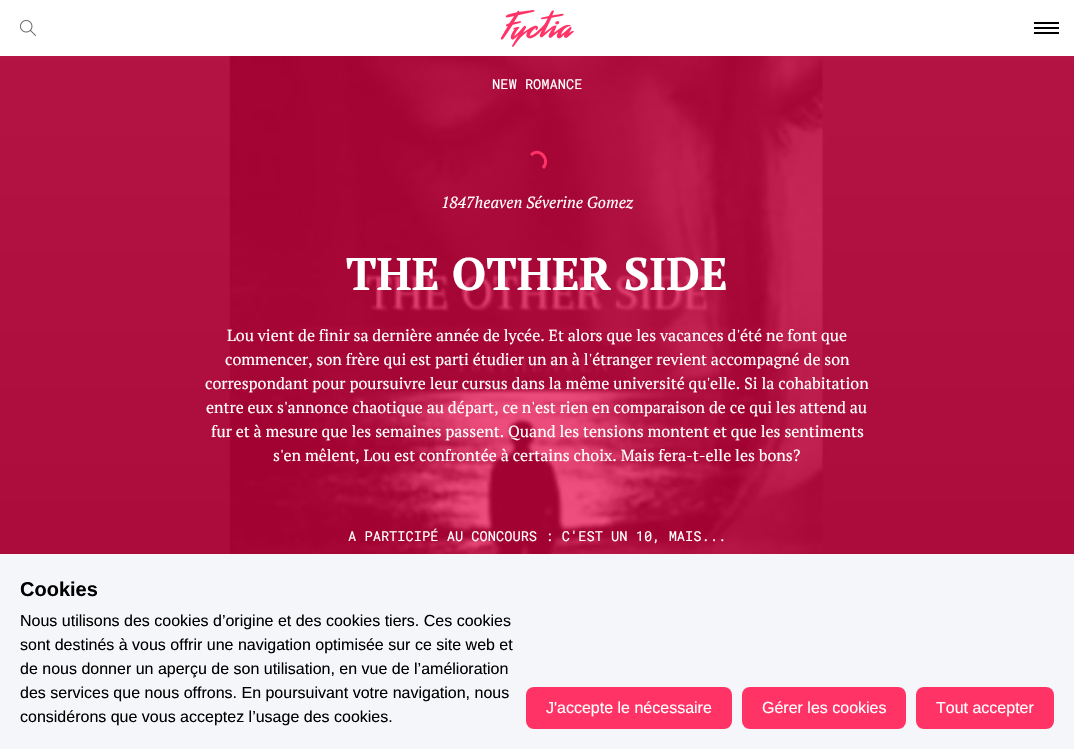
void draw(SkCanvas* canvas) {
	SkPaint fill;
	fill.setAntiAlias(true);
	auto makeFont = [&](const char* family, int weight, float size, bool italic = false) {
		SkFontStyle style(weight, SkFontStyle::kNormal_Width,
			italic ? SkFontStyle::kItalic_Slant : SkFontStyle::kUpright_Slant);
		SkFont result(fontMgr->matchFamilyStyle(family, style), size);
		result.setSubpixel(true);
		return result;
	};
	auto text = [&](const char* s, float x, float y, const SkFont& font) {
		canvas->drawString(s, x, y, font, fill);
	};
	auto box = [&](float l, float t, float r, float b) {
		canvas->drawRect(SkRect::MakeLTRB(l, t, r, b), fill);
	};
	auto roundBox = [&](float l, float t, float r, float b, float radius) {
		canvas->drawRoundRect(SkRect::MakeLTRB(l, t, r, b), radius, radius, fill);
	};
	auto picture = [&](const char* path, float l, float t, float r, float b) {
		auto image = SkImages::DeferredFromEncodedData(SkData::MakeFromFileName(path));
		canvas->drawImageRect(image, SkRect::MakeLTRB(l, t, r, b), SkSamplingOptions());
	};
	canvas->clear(0xFFFFFFFF);
	picture("image0.png", 20, 20, 36, 36);
	picture("image1.png", 500, 10, 574, 47);
	fill.setColor(0xFF000000);
	box(1034, 27, 1059, 29);
	box(1034, 22, 1059, 24);
	box(1034, 32, 1059, 34);
	fill.setColor(0xFFE70247);
	box(0, 56, 1074, 554);
	picture("image2.png", 0, 56, 1074, 554);
	fill.setStyle(SkPaint::kStroke_Style);
	fill.setStrokeWidth(3);
	fill.setColor(0xFFFF3366);
	canvas->drawPath(SkPathBuilder().moveTo(531, 155).cubicTo(539, 146.5f, 551, 159.5f, 543, 168).detach(), fill);
	fill.setStyle(SkPaint::kFill_Style);
	fill.setColor(0xFFF5F6FA);
	box(0, 554, 1074, 749);
	fill.setColor(0xFFFF3366);
	roundBox(526, 687, 732, 729, 8);
	roundBox(742, 687, 906, 729, 8);
	roundBox(916, 687, 1054, 729, 8);
	auto font1 = makeFont("Roboto Mono", 400, 13.7f);
	fill.setColor(0xFFFFFFFF);
	text("NEW ROMANCE", 492, 89, font1);
	auto font2 = makeFont("PT Serif", 400, 16, true);
	text("1847heaven Séverine Gomez", 441, 208, font2);
	auto font3 = makeFont("PT Serif", 700, 45.75f);
	text("THE OTHER SIDE", 346, 290, font3);
	auto font4 = makeFont("PT Serif", 400, 16);
	text("Lou vient de finir sa dernière année de lycée. Et alors que les vacances d'été ne font que", 227, 341, font4);
	text("commencer, son frère qui est parti étudier un an à l'étranger revient accompagné de son", 225, 365, font4);
	text("correspondant pour poursuivre leur cursus dans la même université qu'elle. Si la cohabitation", 205, 389, font4);
	text("entre eux s'annonce chaotique au départ, ce n'est rien en comparaison de ce qui les attend au", 206, 413, font4);
	text("fur et à mesure que les semaines passent. Quand les tensions montent et que les sentiments", 211, 437, font4);
	text("s'en mêlent, Lou est confrontée à certains choix. Mais fera-t-elle les bons?", 273, 461, font4);
	text("A PARTICIPÉ AU CONCOURS : C'EST UN 10, MAIS...", 348, 541, font1);
	auto font5 = makeFont("Liberation Sans", 700, 20);
	fill.setColor(0xFF000000);
	text("Cookies", 20, 596, font5);
	auto font6 = makeFont("Liberation Sans", 400, 16);
	text("Nous utilisons des cookies d’origine et des cookies tiers. Ces cookies", 20, 626, font6);
	text("sont destinés à vous offrir une navigation optimisée sur ce site web et", 20, 650, font6);
	text("de nous donner un aperçu de son utilisation, en vue de l’amélioration", 20, 674, font6);
	text("des services que nous offrons. En poursuivant votre navigation, nous", 20, 698, font6);
	text("considérons que vous acceptez l’usage des cookies.", 20, 722, font6);
	fill.setColor(0xFFFFFFFF);
	text("J'accepte le nécessaire", 546, 713, font6);
	text("Gérer les cookies", 762, 713, font6);
	text("Tout accepter", 936, 713, font6);
}
